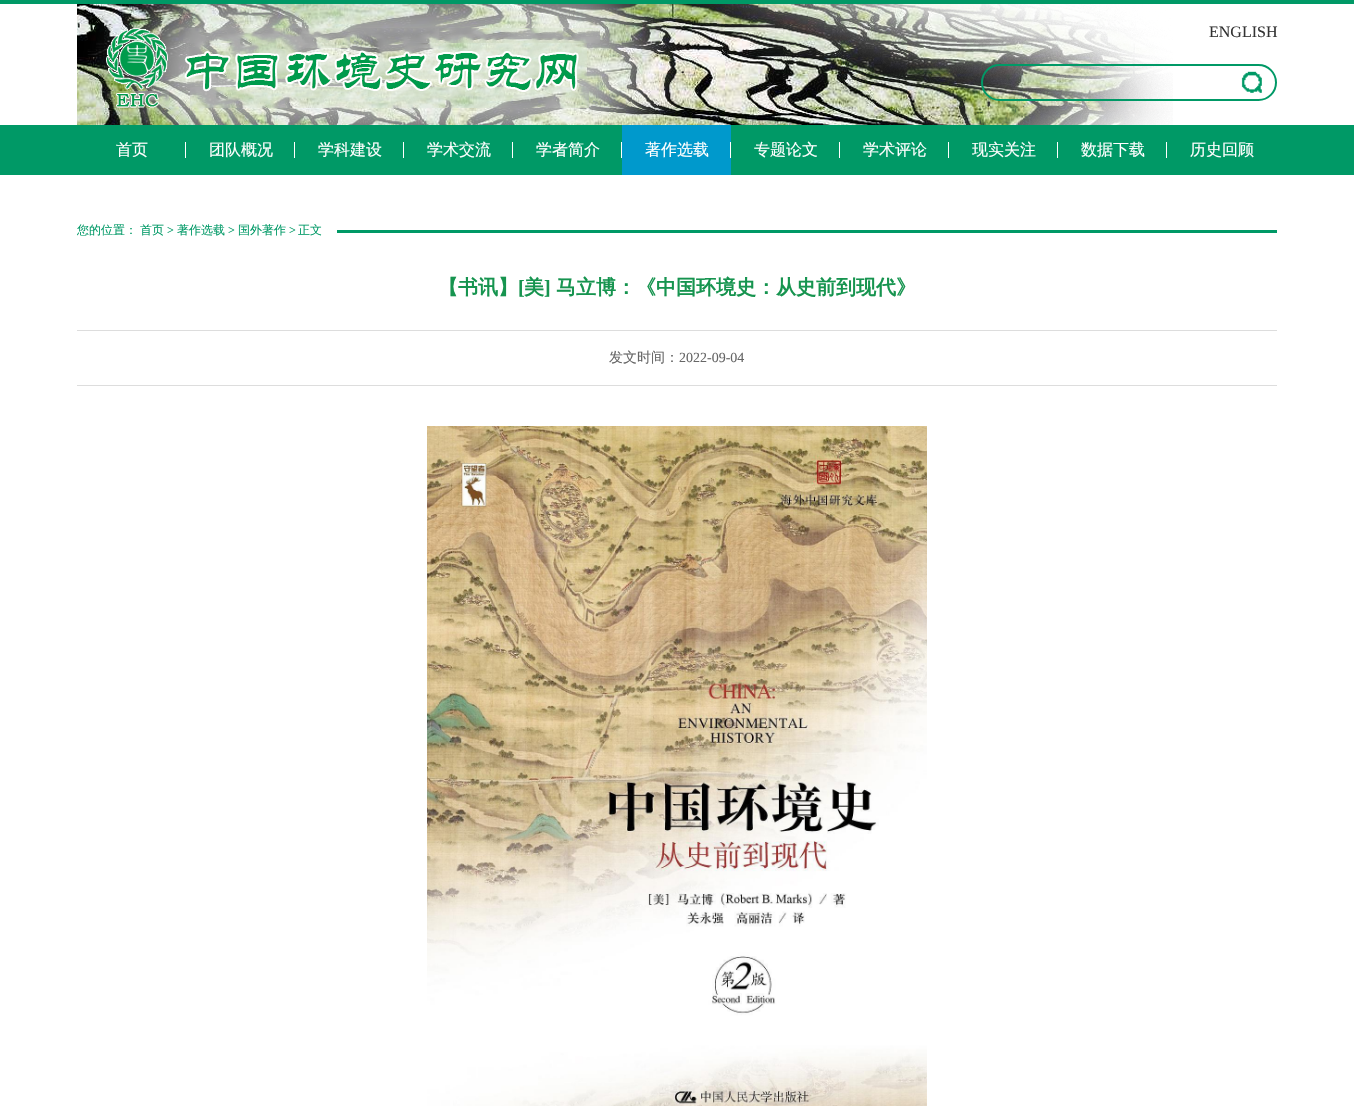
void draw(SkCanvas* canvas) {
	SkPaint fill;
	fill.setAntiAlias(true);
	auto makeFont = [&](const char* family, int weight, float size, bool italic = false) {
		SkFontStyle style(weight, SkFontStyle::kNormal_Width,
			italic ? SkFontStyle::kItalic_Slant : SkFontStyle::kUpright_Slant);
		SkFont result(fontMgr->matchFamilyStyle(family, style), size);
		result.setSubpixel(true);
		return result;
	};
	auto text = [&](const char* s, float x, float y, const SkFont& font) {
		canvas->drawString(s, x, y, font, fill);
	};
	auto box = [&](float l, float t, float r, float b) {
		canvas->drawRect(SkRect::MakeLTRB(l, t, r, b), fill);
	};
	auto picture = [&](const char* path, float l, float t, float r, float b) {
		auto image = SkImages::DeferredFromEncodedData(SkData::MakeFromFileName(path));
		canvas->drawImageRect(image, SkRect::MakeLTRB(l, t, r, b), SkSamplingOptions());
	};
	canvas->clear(0xFFFFFFFF);
	fill.setColor(0xFF009966);
	box(0, 0, 1354, 4);
	picture("image0.png", 77, 4, 1173, 125);
	fill.setStyle(SkPaint::kStroke_Style);
	fill.setStrokeWidth(2);
	canvas->drawRoundRect(SkRect::MakeLTRB(982, 65, 1276, 100), 17.5f, 17.5f, fill);
	picture("image1.png", 1241, 71, 1262, 93);
	fill.setStyle(SkPaint::kFill_Style);
	box(0, 125, 1354, 175);
	fill.setColor(0xFFFFFFFF);
	box(185, 142, 186, 158);
	box(294, 142, 295, 158);
	box(403, 142, 404, 158);
	box(512, 142, 513, 158);
	box(621, 142, 622, 158);
	fill.setColor(0xFF0099CC);
	box(622, 125, 731, 175);
	fill.setColor(0xFFFFFFFF);
	box(730, 142, 731, 158);
	box(839, 142, 840, 158);
	box(948, 142, 949, 158);
	box(1057, 142, 1058, 158);
	box(1166, 142, 1167, 158);
	fill.setColor(0xFF009966);
	box(337, 230, 1277, 233);
	fill.setColor(0xFFDDDDDD);
	box(77, 330, 1277, 331);
	box(77, 385, 1277, 386);
	picture("image2.png", 427, 426, 927, 1106);
	auto font1 = makeFont("Liberation Serif", 400, 16);
	fill.setColor(0xFF333333);
	text("ENGLISH", 1209, 37, font1);
	auto font2 = makeFont("WenQuanYi Zen Hei", 500, 16);
	fill.setColor(0xFFFFFFFF);
	text("首页", 116, 155, font2);
	text("团队概况", 209, 155, font2);
	text("学科建设", 318, 155, font2);
	text("学术交流", 427, 155, font2);
	text("学者简介", 536, 155, font2);
	text("著作选载", 645, 155, font2);
	text("专题论文", 754, 155, font2);
	text("学术评论", 863, 155, font2);
	text("现实关注", 972, 155, font2);
	text("数据下载", 1081, 155, font2);
	text("历史回顾", 1190, 155, font2);
	auto font3 = makeFont("WenQuanYi Zen Hei", 500, 12);
	fill.setColor(0xFF009966);
	text("您的位置：", 77, 234, font3);
	text("首页", 140, 234, font3);
	auto font4 = makeFont("Liberation Serif", 400, 12);
	text(">", 167, 234, font4);
	text("著作选载", 177, 234, font3);
	text(">", 228, 234, font4);
	text("国外著作", 238, 234, font3);
	text(">", 289, 234, font4);
	text("正文", 298, 234, font3);
	auto font5 = makeFont("WenQuanYi Zen Hei", 700, 20);
	fill.setColor(0xFF16944F);
	text("【书讯】", 438, 294, font5);
	auto font6 = makeFont("Liberation Serif", 700, 20);
	text("[", 518, 294, font6);
	text("美", 524, 294, font5);
	text("]", 544, 294, font6);
	text("马立博：《中国环境史：从史前到现代》", 556, 294, font5);
	auto font7 = makeFont("WenQuanYi Zen Hei", 500, 14);
	fill.setColor(0xFF666666);
	text("发文时间：", 609, 362, font7);
	auto font8 = makeFont("Liberation Serif", 400, 14);
	text("2022-09-04", 679, 362, font8);
}
